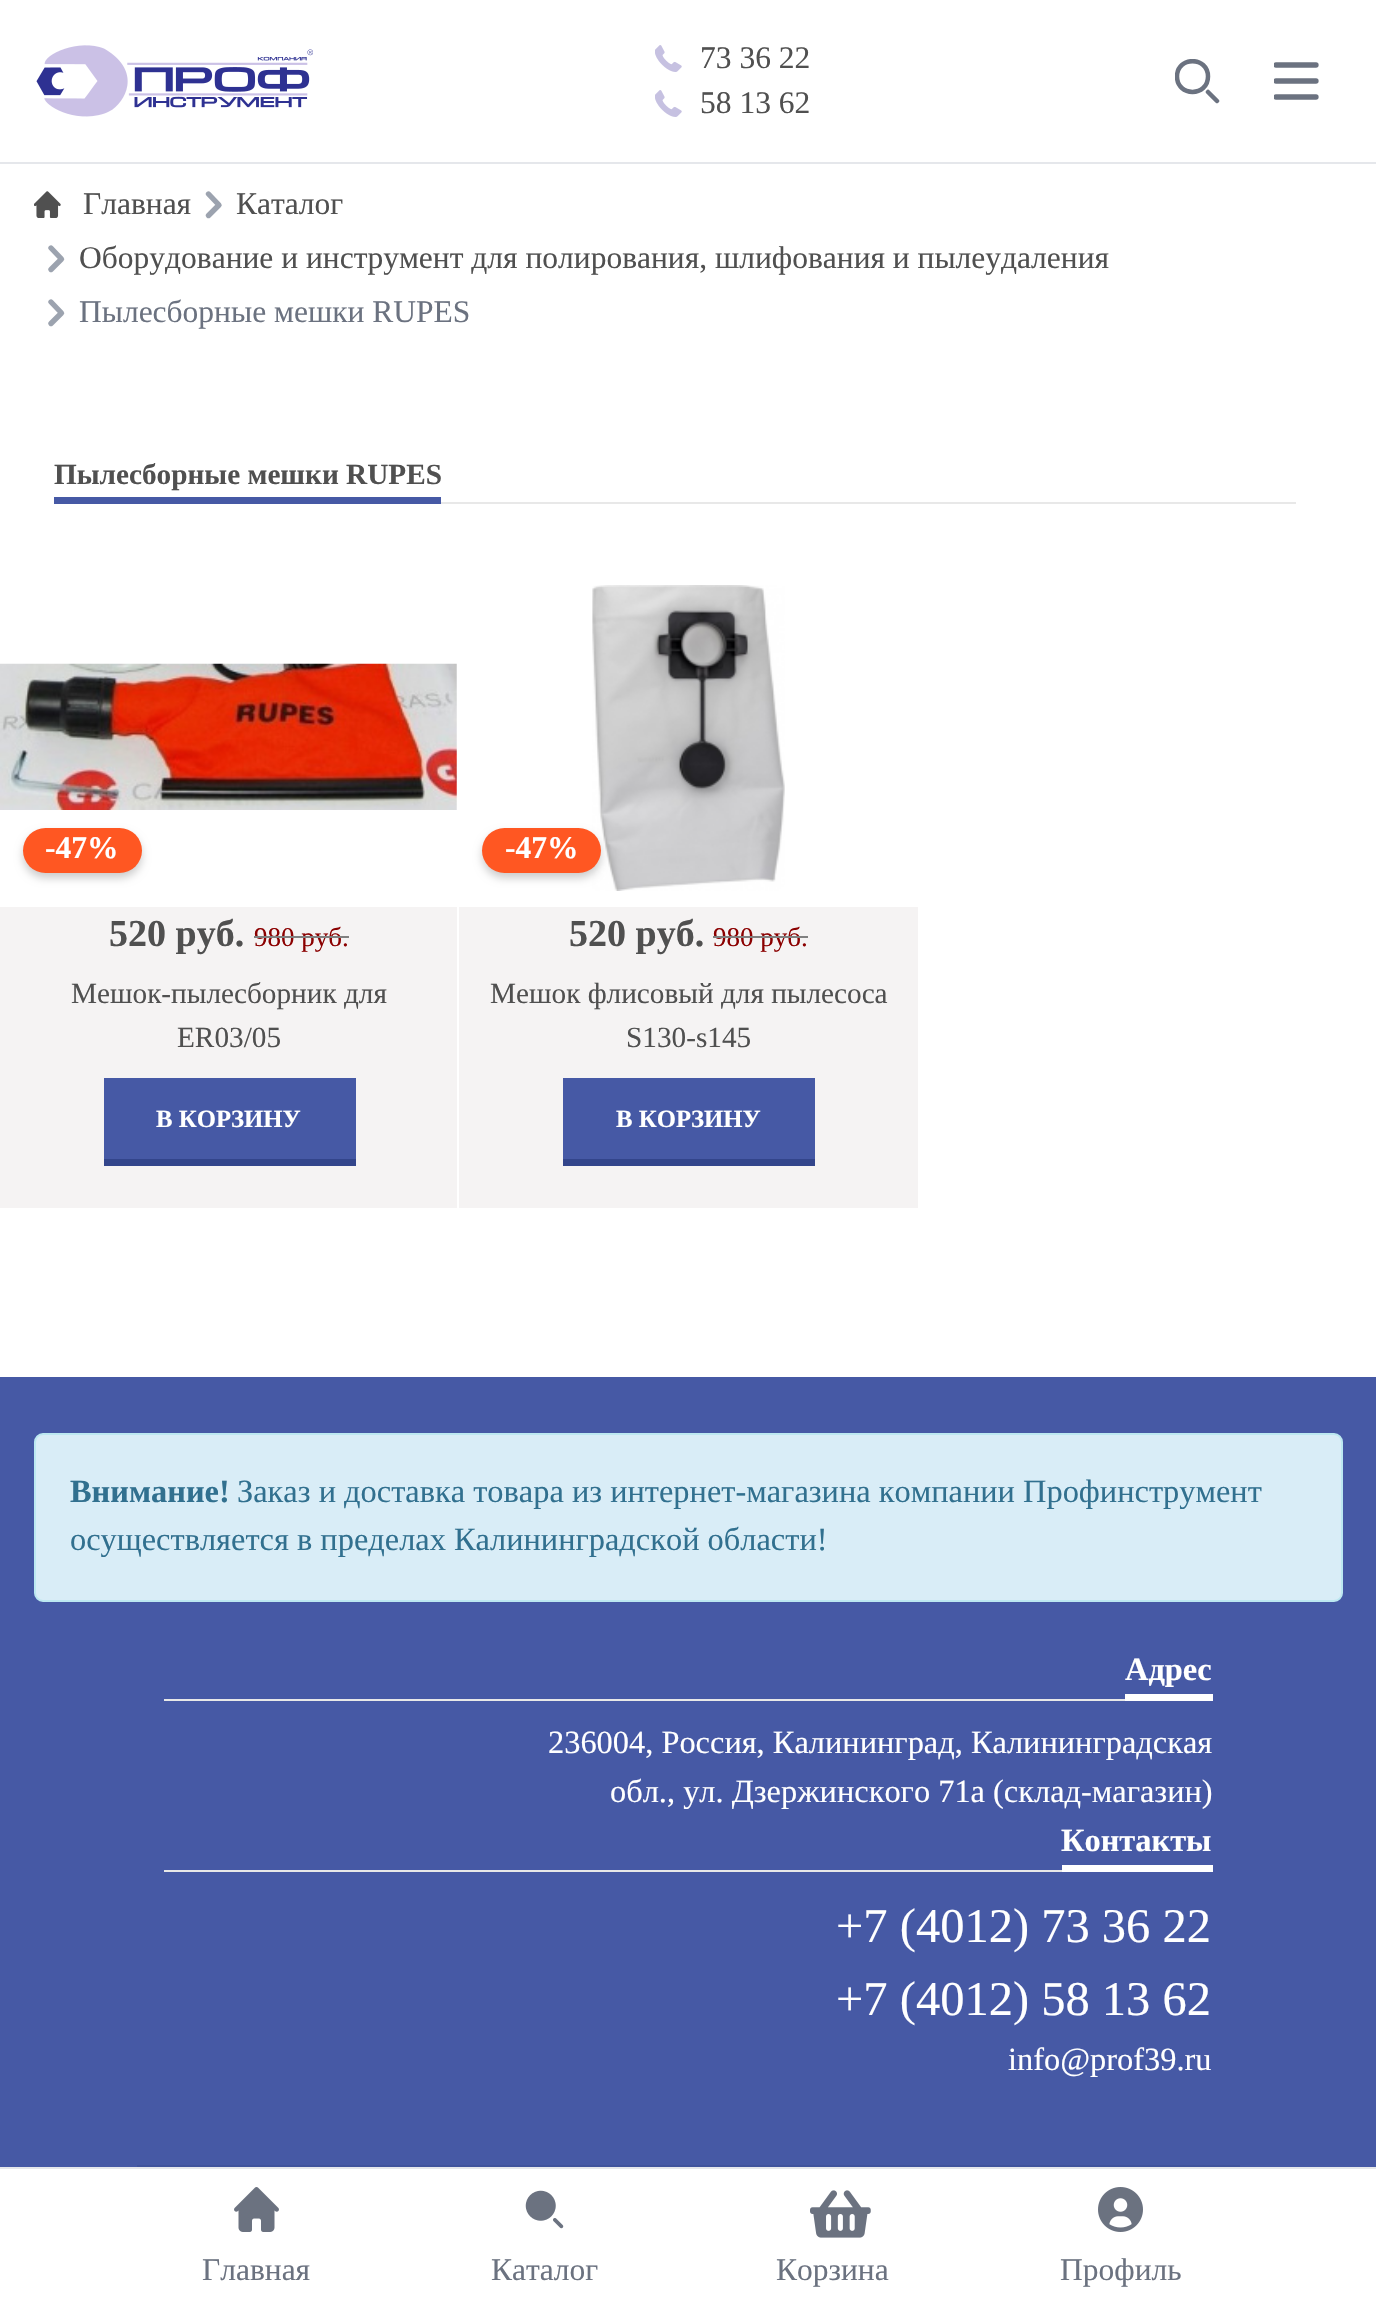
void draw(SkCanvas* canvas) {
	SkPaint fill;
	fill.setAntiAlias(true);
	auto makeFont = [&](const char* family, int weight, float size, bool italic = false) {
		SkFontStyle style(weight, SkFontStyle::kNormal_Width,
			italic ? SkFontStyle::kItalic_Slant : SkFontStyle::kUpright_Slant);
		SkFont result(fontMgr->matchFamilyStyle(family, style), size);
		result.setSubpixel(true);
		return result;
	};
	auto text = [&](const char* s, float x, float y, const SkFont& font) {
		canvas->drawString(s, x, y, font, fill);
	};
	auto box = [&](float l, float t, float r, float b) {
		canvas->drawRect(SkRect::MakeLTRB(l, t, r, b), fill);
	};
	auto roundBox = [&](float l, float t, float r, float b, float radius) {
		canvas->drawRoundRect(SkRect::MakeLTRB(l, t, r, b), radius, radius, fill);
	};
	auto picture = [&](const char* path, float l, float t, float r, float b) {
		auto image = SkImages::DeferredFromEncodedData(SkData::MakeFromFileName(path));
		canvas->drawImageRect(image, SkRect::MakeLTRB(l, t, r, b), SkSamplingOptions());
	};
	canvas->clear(0xFFFFFFFF);
	fill.setColor(0xFFE5E7EB);
	box(0, 162, 1376, 164);
	picture("image0.png", 36, 45, 313, 117);
	picture("image1.png", 655, 45, 682, 72);
	picture("image1.png", 655, 90, 682, 117);
	canvas->save();
	canvas->clipRect(SkRect::MakeLTRB(1175, 59, 1220, 104));
	fill.setStyle(SkPaint::kStroke_Style);
	fill.setStrokeWidth(4.5f);
	fill.setStrokeCap(SkPaint::kRound_Cap);
	fill.setStrokeJoin(SkPaint::kRound_Join);
	fill.setColor(0xFF6B7280);
	canvas->drawPath(SkPathBuilder().moveTo(1217, 101).lineTo(1208, 92).moveTo(1208, 76.5f).cubicTo(1208, 97, 1177, 97, 1177, 76.5f).cubicTo(1177, 56, 1208, 56, 1208, 76.5f).close().detach(), fill);
	canvas->restore();
	canvas->save();
	canvas->clipRect(SkRect::MakeLTRB(1274, 59, 1319, 104));
	fill.setStrokeWidth(5.3f);
	canvas->drawPath(SkPathBuilder().moveTo(1276, 65).lineTo(1316, 65).moveTo(1276, 81).lineTo(1316, 81).moveTo(1276, 97).lineTo(1316, 97).detach(), fill);
	canvas->restore();
	picture("image2.png", 34, 191, 61, 218);
	fill.setStrokeWidth(5.4f);
	fill.setColor(0xFF9CA3AF);
	canvas->drawPath(SkPathBuilder().moveTo(208.5f, 215.5f).lineTo(219, 205).lineTo(208.5f, 194).detach(), fill);
	canvas->drawPath(SkPathBuilder().moveTo(51, 269.5f).lineTo(61.5f, 259).lineTo(51, 248).detach(), fill);
	canvas->drawPath(SkPathBuilder().moveTo(51, 323.5f).lineTo(61.5f, 313).lineTo(51, 302).detach(), fill);
	fill.setStyle(SkPaint::kFill_Style);
	fill.setColor(0xFFE8E8E8);
	box(441, 502, 1296, 504);
	fill.setColor(0xFF4659A5);
	box(54, 497, 441, 504);
	picture("image3.png", 0, 663, 457, 810);
	fill.setColor(0xFFF5F3F3);
	box(0, 907, 457, 1208);
	fill.setColor(0x33000000);
	fill.setMaskFilter(SkMaskFilter::MakeBlur(kNormal_SkBlurStyle, 4.5f));
	canvas->drawRoundRect(SkRect::MakeLTRB(23, 833, 142, 878), 22.5f, 22.5f, fill);
	fill.setMaskFilter(nullptr);
	fill.setColor(0xFFFF5722);
	roundBox(23, 828, 142, 873, 22.5f);
	fill.setColor(0xFF4659A5);
	box(104, 1078, 356, 1159);
	fill.setColor(0xFF33458B);
	box(104, 1159, 356, 1166);
	picture("image4.png", 592, 585, 785, 891);
	fill.setColor(0xFFF5F3F3);
	box(459, 907, 918, 1208);
	fill.setColor(0x33000000);
	fill.setMaskFilter(SkMaskFilter::MakeBlur(kNormal_SkBlurStyle, 4.5f));
	canvas->drawRoundRect(SkRect::MakeLTRB(482, 833, 601, 878), 22.5f, 22.5f, fill);
	fill.setMaskFilter(nullptr);
	fill.setColor(0xFFFF5722);
	roundBox(482, 828, 601, 873, 22.5f);
	fill.setColor(0xFF4659A5);
	box(563, 1078, 815, 1159);
	fill.setColor(0xFF33458B);
	box(563, 1159, 815, 1166);
	fill.setColor(0xFF4659A5);
	box(0, 1377, 1376, 2167);
	fill.setColor(0xFFD9EDF7);
	canvas->drawRoundRect(SkRect::MakeLTRB(35, 1434, 1342, 1601), 8, 8, fill);
	fill.setStyle(SkPaint::kStroke_Style);
	fill.setStrokeWidth(2);
	fill.setStrokeCap(SkPaint::kButt_Cap);
	fill.setStrokeJoin(SkPaint::kMiter_Join);
	fill.setColor(0xFFBCE8F1);
	canvas->drawRoundRect(SkRect::MakeLTRB(35, 1434, 1342, 1601), 8, 8, fill);
	fill.setStyle(SkPaint::kFill_Style);
	fill.setColor(0xFFE8E8E8);
	box(164, 1699, 1125, 1701);
	fill.setColor(0xFFFFFFFF);
	box(1125, 1694, 1213, 1701);
	fill.setColor(0xFFE8E8E8);
	box(164, 1870, 1062, 1872);
	fill.setColor(0xFFFFFFFF);
	box(1062, 1865, 1213, 1872);
	fill.setColor(0xFF40539C);
	box(137, 2165, 1240, 2167);
	fill.setColor(0xFFE5E7EB);
	box(0, 2167, 1376, 2169);
	picture("image5.png", 234, 2187, 279, 2232);
	picture("image6.png", 525, 2190, 564, 2229);
	picture("image7.png", 810, 2190, 871, 2238);
	picture("image8.png", 1098, 2187, 1143, 2232);
	auto font1 = makeFont("Liberation Serif", 400, 31.5f);
	fill.setColor(0xFF505050);
	text("73 36 22", 700, 68, font1);
	text("58 13 62", 700, 113, font1);
	text("Главная", 83, 214, font1);
	text("Каталог", 236, 214, font1);
	text("Оборудование и инструмент для полирования, шлифования и пылеудаления", 79, 268, font1);
	fill.setColor(0xFF6B7280);
	text("Пылесборные мешки RUPES", 79, 322, font1);
	auto font2 = makeFont("Liberation Serif", 700, 29.25f);
	fill.setColor(0xFF505050);
	text("Пылесборные мешки RUPES", 54, 484, font2);
	auto font3 = makeFont("Liberation Serif", 700, 31.5f);
	fill.setColor(0xFFFFFFFF);
	text("-47%", 45, 858, font3);
	auto font4 = makeFont("Liberation Serif", 700, 38);
	fill.setColor(0xFF505050);
	text("520 руб.", 109, 946, font4);
	auto font5 = makeFont("Liberation Serif", 400, 27);
	fill.setColor(0xFF8B0000);
	text("980 руб.", 254, 946, font5);
	fill.setColor(0xFF808080);
	box(254, 936, 349, 938);
	auto font6 = makeFont("Liberation Serif", 400, 29.25f);
	fill.setColor(0xFF505050);
	text("Мешок-пылесборник для", 71, 1003, font6);
	text("ER03/05", 177, 1047, font6);
	auto font7 = makeFont("Liberation Serif", 700, 24.75f);
	fill.setColor(0xFFFFFFFF);
	text("В КОРЗИНУ", 156, 1127, font7);
	text("-47%", 505, 858, font3);
	fill.setColor(0xFF505050);
	text("520 руб.", 569, 946, font4);
	fill.setColor(0xFF8B0000);
	text("980 руб.", 713, 946, font5);
	fill.setColor(0xFF808080);
	box(713, 936, 808, 938);
	fill.setColor(0xFF505050);
	text("Мешок флисовый для пылесоса", 490, 1003, font6);
	text("S130-s145", 626, 1047, font6);
	fill.setColor(0xFFFFFFFF);
	text("В КОРЗИНУ", 616, 1127, font7);
	auto font8 = makeFont("Liberation Serif", 700, 32.4f);
	fill.setColor(0xFF31708F);
	text("Внимание!", 70, 1502, font8);
	auto font9 = makeFont("Liberation Serif", 400, 32.4f);
	text("Заказ и доставка товара из интернет-магазина компании Профинструмент", 237, 1502, font9);
	text("осуществляется в пределах Калининградской области!", 70, 1550, font9);
	fill.setColor(0xFFFFFFFF);
	text("Адрес", 1125, 1680, font8);
	text("236004, Россия, Калининград, Калининградская", 548, 1753, font9);
	text("обл., ул. Дзержинского 71а (склад-магазин)", 610, 1802, font9);
	text("Контакты", 1061, 1851, font8);
	auto font10 = makeFont("Liberation Serif", 400, 48.5f);
	text("+7 (4012) 73 36 22", 836, 1942, font10);
	text("+7 (4012) 58 13 62", 836, 2015, font10);
	text("info@prof39.ru", 1008, 2070, font9);
	fill.setColor(0xFF6B7280);
	text("Главная", 202, 2280, font1);
	text("Каталог", 491, 2280, font1);
	text("Корзина", 776, 2280, font1);
	text("Профиль", 1060, 2280, font1);
}
